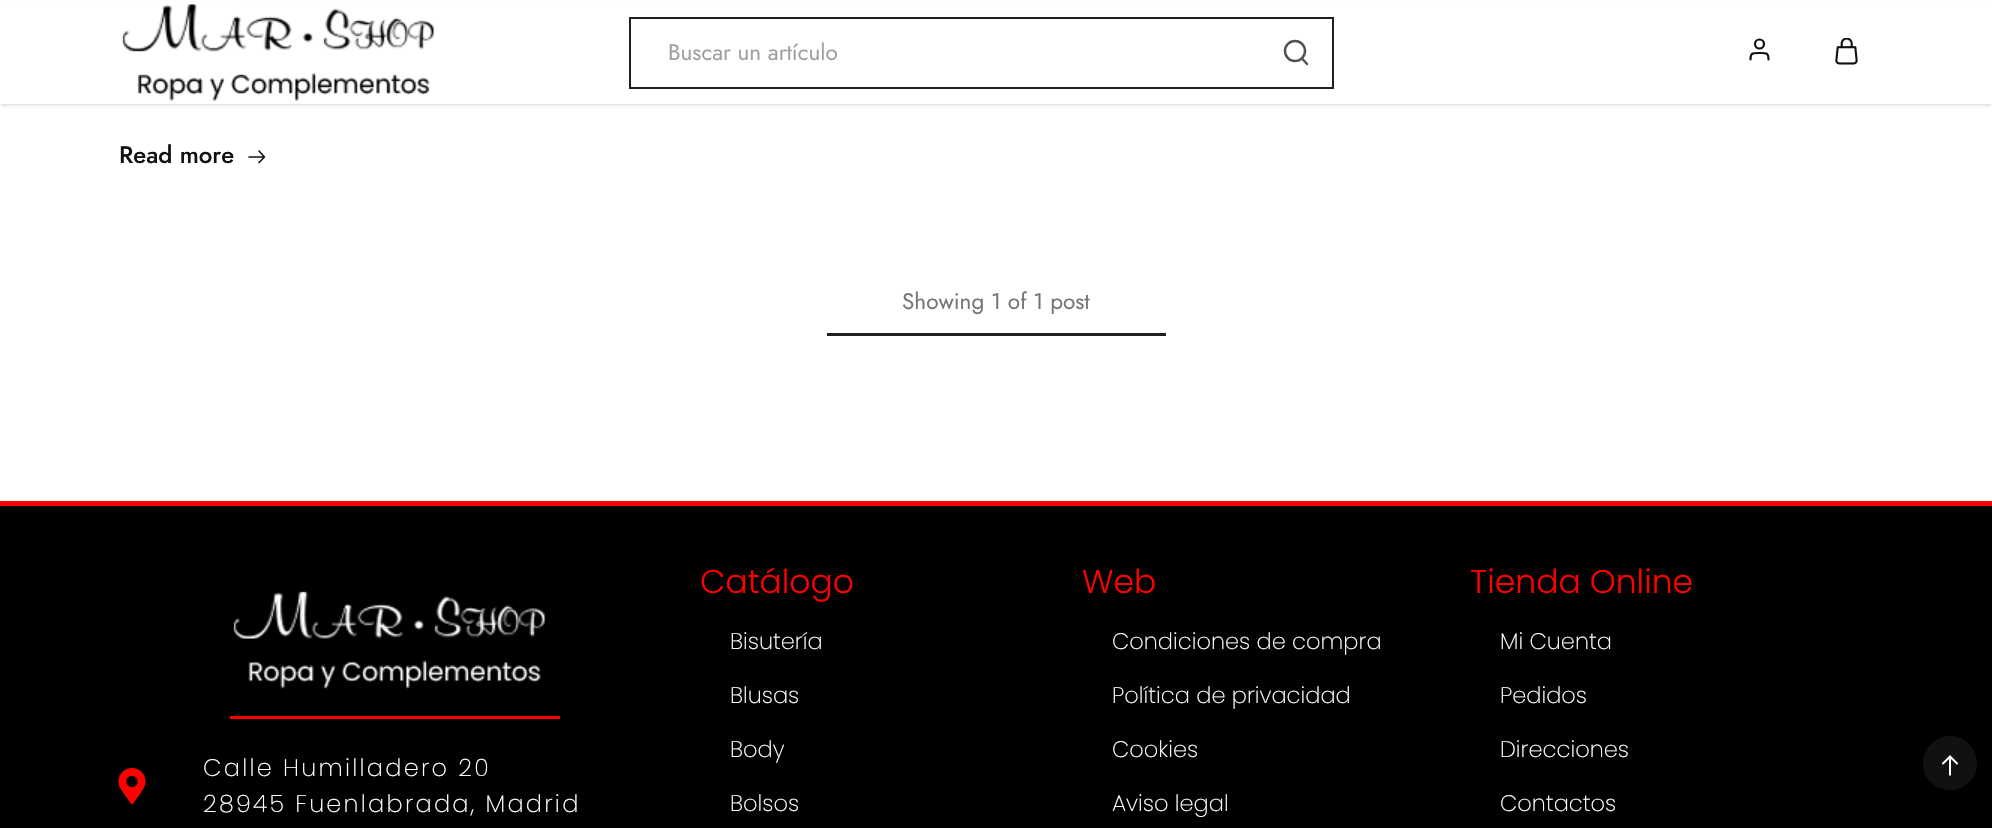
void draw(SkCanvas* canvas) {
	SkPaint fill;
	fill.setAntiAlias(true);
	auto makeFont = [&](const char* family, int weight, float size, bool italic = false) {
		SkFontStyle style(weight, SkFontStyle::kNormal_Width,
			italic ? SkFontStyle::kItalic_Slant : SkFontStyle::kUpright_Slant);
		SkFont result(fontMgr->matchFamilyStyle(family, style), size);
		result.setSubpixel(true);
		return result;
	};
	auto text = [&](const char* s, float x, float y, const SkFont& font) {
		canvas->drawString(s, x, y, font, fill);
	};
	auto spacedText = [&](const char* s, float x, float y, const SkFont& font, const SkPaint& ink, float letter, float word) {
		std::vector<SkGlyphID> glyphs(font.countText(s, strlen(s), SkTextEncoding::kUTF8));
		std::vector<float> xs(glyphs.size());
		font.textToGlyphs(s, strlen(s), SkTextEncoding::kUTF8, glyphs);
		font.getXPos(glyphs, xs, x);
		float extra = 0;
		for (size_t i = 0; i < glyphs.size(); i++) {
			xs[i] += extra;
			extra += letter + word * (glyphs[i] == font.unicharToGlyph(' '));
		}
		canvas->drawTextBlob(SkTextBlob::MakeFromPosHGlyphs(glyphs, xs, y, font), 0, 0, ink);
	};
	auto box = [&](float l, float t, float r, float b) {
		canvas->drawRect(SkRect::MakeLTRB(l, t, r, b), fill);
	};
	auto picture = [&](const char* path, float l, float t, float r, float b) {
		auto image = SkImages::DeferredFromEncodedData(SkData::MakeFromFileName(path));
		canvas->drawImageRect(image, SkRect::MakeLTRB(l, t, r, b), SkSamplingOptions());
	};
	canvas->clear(0xFFFFFFFF);
	fill.setColor(0xFFF0F0F0);
	fill.setMaskFilter(SkMaskFilter::MakeBlur(kNormal_SkBlurStyle, 1));
	canvas->drawRect(SkRect::MakeLTRB(0, 2, 1992, 107), fill);
	fill.setMaskFilter(nullptr);
	fill.setColor(0xFFFFFFFF);
	box(0, 1, 1992, 105);
	fill.setColor(0xFFE2E2E2);
	canvas->drawPath(SkPathBuilder().moveTo(1992, 105).lineTo(0, 105).lineTo(2, 104).lineTo(1990, 104).close().detach(), fill);
	picture("image0.png", 122, 4, 434, 101);
	fill.setStyle(SkPaint::kStroke_Style);
	fill.setStrokeWidth(2);
	fill.setColor(0xFF1F1F1F);
	canvas->drawRect(SkRect::MakeLTRB(630, 18, 1333, 88), fill);
	fill.setStrokeWidth(2.5f);
	fill.setColor(0xFF525252);
	canvas->drawCircle(1295, 51, 10, fill);
	fill.setStrokeCap(SkPaint::kRound_Cap);
	fill.setStrokeJoin(SkPaint::kRound_Join);
	canvas->drawPath(SkPathBuilder().moveTo(1307, 64).lineTo(1302, 58.5f).detach(), fill);
	fill.setStrokeWidth(2.2f);
	fill.setColor(0xFF111111);
	canvas->drawPath(SkPathBuilder().moveTo(1768.5f, 59.5f).cubicTo(1768.5f, 52.5f, 1766, 53, 1759.5f, 53).cubicTo(1753, 53, 1750.5f, 52.5f, 1750.5f, 59.5f).detach(), fill);
	fill.setStrokeCap(SkPaint::kButt_Cap);
	fill.setStrokeJoin(SkPaint::kMiter_Join);
	canvas->drawCircle(1759.5f, 44, 4.5f, fill);
	picture("image1.png", 1835, 38, 1858, 65);
	fill.setStrokeWidth(1.6f);
	fill.setStrokeCap(SkPaint::kRound_Cap);
	fill.setStrokeJoin(SkPaint::kRound_Join);
	canvas->drawPath(SkPathBuilder().moveTo(249, 157).lineTo(264.5f, 157).moveTo(259, 151).lineTo(264.5f, 157).lineTo(259, 162.5f).detach(), fill);
	fill.setStyle(SkPaint::kFill_Style);
	fill.setColor(0xFF1F1F1F);
	box(827, 333, 1166, 336);
	fill.setColor(0xFF000000);
	box(0, 506, 1992, 828);
	fill.setColor(0xFFFF0000);
	box(0, 501, 1992, 506);
	box(230, 716, 560, 719);
	picture("image2.png", 233, 591, 545, 689);
	picture("image3.png", 118, 768, 146, 804);
	fill.setColor(0xFF111111);
	canvas->drawPath(SkPathBuilder().moveTo(1923, 764).cubicTo(1923, 749, 1935, 736, 1950, 736).cubicTo(1965, 736, 1977, 749, 1977, 764).cubicTo(1977, 778, 1965, 790, 1950, 790).cubicTo(1935, 790, 1923, 778, 1923, 764).close().detach(), fill);
	canvas->save();
	canvas->clipPath(SkPathBuilder().moveTo(1938, 775.5f).lineTo(1938, 751.5f).lineTo(1962, 751.5f).lineTo(1962, 775.5f).close().detach(), true);
	fill.setStyle(SkPaint::kStroke_Style);
	fill.setStrokeWidth(2);
	fill.setColor(0xFFFFFFFF);
	canvas->drawPath(SkPathBuilder().moveTo(1950, 775.5f).lineTo(1950, 756.5f).detach(), fill);
	canvas->restore();
	canvas->drawPath(SkPathBuilder().moveTo(1943, 763.5f).lineTo(1950, 756.5f).lineTo(1957, 763.5f).detach(), fill);
	auto font1 = makeFont("Jost", 400, 22.5f);
	fill.setStyle(SkPaint::kFill_Style);
	fill.setColor(0xFFA0A0A0);
	text("Buscar un artículo", 668, 60, font1);
	auto font2 = makeFont("Jost", 500, 24);
	fill.setColor(0xFF111111);
	text("Read more", 119, 163, font2);
	fill.setColor(0xFF767676);
	text("Showing 1 of 1 post", 902, 309, font1);
	auto font3 = makeFont("Poppins", 200, 24);
	fill.setColor(0xFFFFFFFF);
	spacedText("Calle Humilladero 20", 203, 776, font3, fill, 2.25f, 0);
	spacedText("28945 Fuenlabrada, Madrid", 203, 812, font3, fill, 2.25f, 0);
	auto font4 = makeFont("Poppins", 300, 33);
	fill.setColor(0xFFFF0000);
	text("Catálogo", 700, 593, font4);
	auto font5 = makeFont("Poppins", 200, 22.5f);
	fill.setColor(0xFFFFFFFF);
	text("Bisutería", 730, 649, font5);
	text("Blusas", 730, 703, font5);
	text("Body", 730, 757, font5);
	text("Bolsos", 730, 811, font5);
	fill.setColor(0xFFFF0000);
	text("Web", 1082, 593, font4);
	fill.setColor(0xFFFFFFFF);
	text("Condiciones de compra", 1112, 649, font5);
	text("Política de privacidad", 1112, 703, font5);
	text("Cookies", 1112, 757, font5);
	text("Aviso legal", 1112, 811, font5);
	fill.setColor(0xFFFF0000);
	text("Tienda Online", 1470, 593, font4);
	fill.setColor(0xFFFFFFFF);
	text("Mi Cuenta", 1500, 649, font5);
	text("Pedidos", 1500, 703, font5);
	text("Direcciones", 1500, 757, font5);
	text("Contactos", 1500, 811, font5);
}
